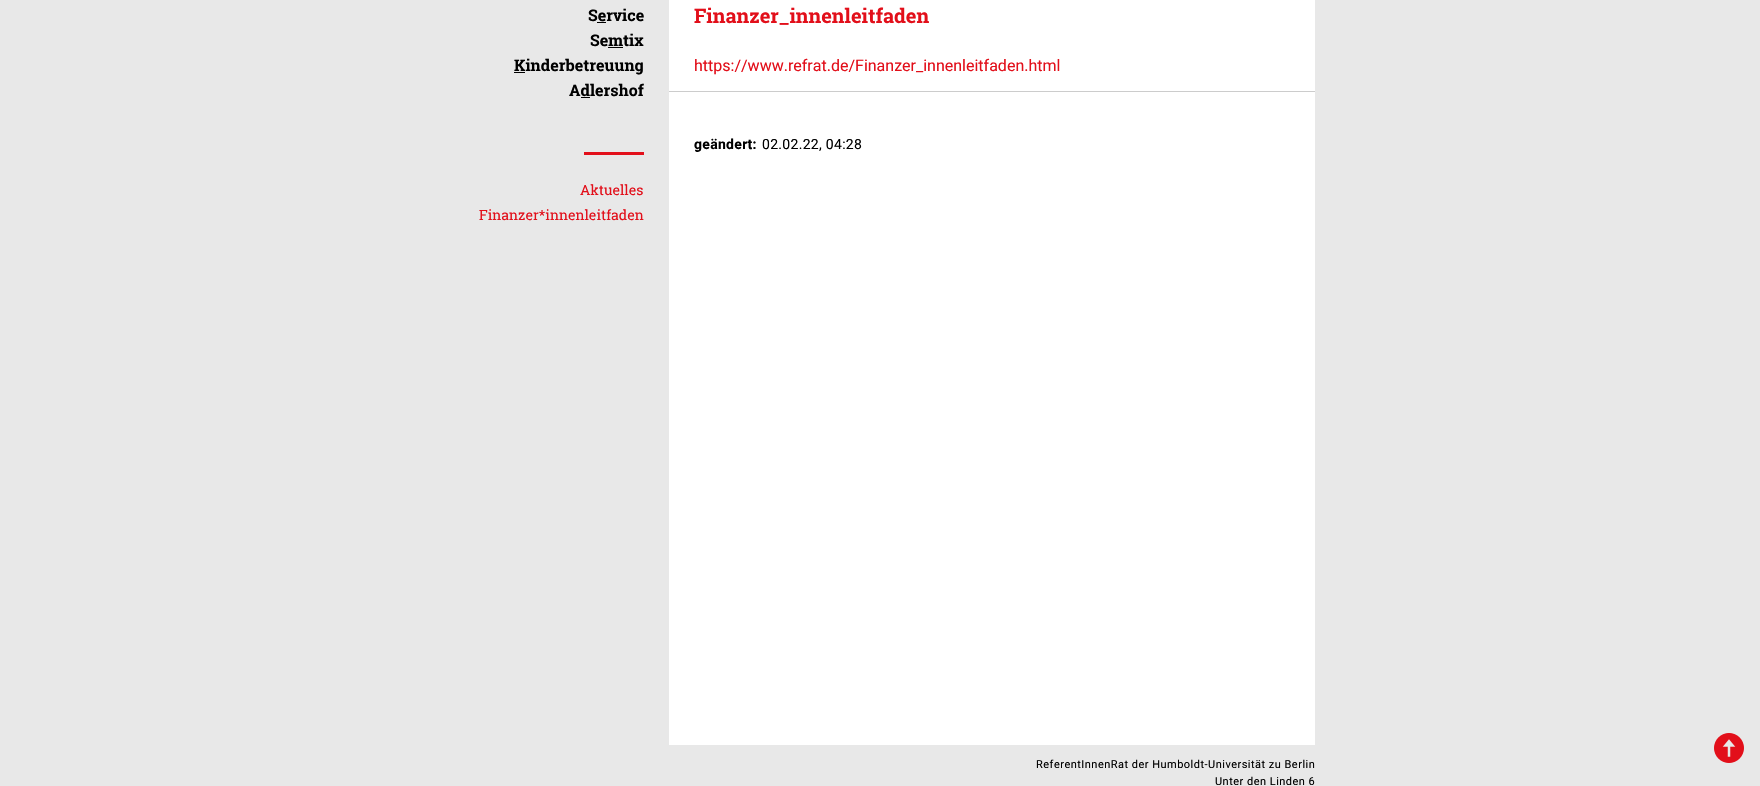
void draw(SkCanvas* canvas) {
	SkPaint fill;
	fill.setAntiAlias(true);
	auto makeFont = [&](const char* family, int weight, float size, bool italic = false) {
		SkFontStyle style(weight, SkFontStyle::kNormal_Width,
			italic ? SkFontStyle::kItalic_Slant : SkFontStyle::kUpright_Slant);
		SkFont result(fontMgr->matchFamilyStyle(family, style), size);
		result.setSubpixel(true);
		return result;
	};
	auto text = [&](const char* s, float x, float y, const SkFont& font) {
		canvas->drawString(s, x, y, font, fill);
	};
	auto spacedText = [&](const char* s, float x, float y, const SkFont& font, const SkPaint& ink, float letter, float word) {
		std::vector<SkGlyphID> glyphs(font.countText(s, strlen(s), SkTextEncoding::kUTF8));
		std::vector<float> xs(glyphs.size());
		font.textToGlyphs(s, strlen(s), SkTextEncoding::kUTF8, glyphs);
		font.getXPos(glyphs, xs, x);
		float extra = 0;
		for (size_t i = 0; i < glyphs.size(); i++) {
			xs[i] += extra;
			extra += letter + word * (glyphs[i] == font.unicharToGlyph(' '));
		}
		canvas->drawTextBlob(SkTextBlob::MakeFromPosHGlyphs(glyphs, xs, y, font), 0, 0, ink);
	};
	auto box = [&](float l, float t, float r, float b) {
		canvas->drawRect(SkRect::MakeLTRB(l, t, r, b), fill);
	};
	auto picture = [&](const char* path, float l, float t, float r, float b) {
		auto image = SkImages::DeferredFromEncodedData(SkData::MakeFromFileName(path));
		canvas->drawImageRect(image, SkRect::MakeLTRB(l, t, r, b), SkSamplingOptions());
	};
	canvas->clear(0xFFE8E8E8);
	fill.setColor(0xFF000000);
	box(597, 22, 606, 23);
	box(608, 47, 623, 48);
	box(514, 72, 525, 73);
	box(581, 97, 590, 98);
	fill.setColor(0xFFE20F1A);
	box(584, 152, 644, 155);
	fill.setColor(0xFFFFFFFF);
	box(669, 0, 1315, 745);
	fill.setColor(0xFFCCCCCC);
	box(669, 91, 1315, 92);
	picture("image0.png", 1714, 733, 1744, 763);
	auto font1 = makeFont("Roboto Slab", 700, 16);
	fill.setColor(0xFF000000);
	text("Service", 588, 21, font1);
	text("Semtix", 590, 46, font1);
	text("Kinderbetreuung", 514, 71, font1);
	text("Adlershof", 569, 96, font1);
	auto font2 = makeFont("Roboto Slab", 400, 14);
	fill.setColor(0xFFE20F1A);
	text("Aktuelles", 580, 195, font2);
	text("Finanzer*innenleitfaden", 479, 220, font2);
	auto font3 = makeFont("Roboto Slab", 700, 20);
	text("Finanzer_innenleitfaden", 694, 23, font3);
	auto font4 = makeFont("Roboto", 400, 16);
	text("https://www.refrat.de/Finanzer_innenleitfaden.html", 694, 71, font4);
	auto font5 = makeFont("Roboto", 700, 14);
	fill.setColor(0xFF000000);
	spacedText("geändert:", 694, 149, font5, fill, 0.3f, 0);
	auto font6 = makeFont("Roboto", 400, 14);
	spacedText("02.02.22, 04:28", 762, 149, font6, fill, 0.3f, 0);
	auto font7 = makeFont("Roboto", 400, 11);
	spacedText("ReferentInnenRat der Humboldt-Universität zu Berlin", 1036, 768, font7, fill, 0.48f, 0);
	spacedText("Unter den Linden 6", 1215, 785, font7, fill, 0.48f, 0);
}
